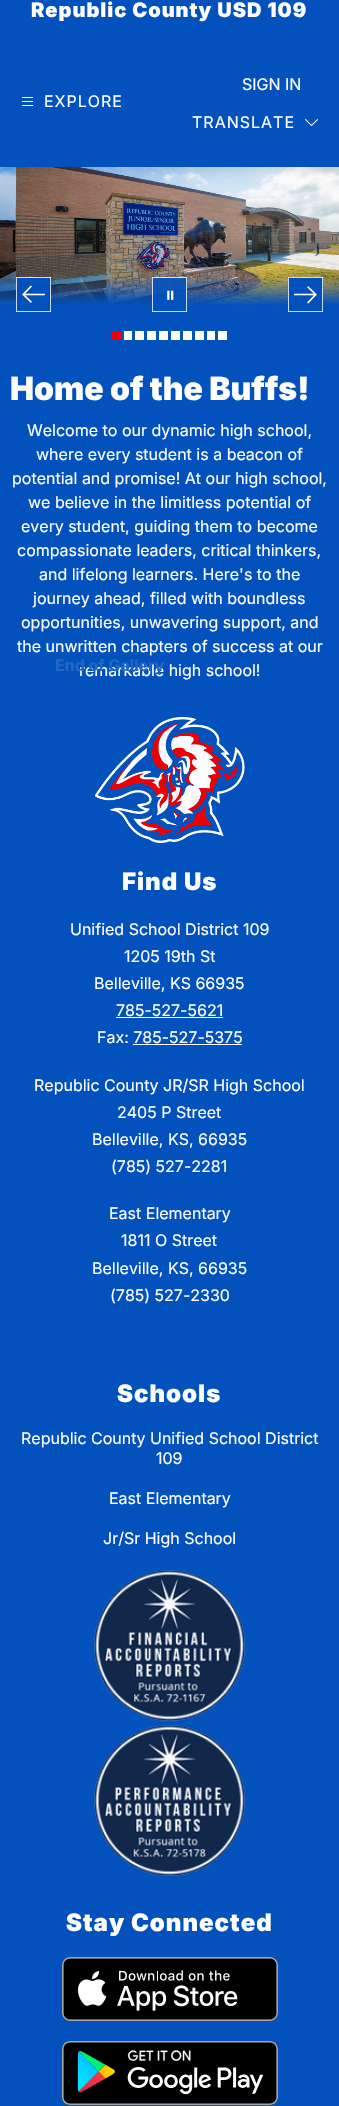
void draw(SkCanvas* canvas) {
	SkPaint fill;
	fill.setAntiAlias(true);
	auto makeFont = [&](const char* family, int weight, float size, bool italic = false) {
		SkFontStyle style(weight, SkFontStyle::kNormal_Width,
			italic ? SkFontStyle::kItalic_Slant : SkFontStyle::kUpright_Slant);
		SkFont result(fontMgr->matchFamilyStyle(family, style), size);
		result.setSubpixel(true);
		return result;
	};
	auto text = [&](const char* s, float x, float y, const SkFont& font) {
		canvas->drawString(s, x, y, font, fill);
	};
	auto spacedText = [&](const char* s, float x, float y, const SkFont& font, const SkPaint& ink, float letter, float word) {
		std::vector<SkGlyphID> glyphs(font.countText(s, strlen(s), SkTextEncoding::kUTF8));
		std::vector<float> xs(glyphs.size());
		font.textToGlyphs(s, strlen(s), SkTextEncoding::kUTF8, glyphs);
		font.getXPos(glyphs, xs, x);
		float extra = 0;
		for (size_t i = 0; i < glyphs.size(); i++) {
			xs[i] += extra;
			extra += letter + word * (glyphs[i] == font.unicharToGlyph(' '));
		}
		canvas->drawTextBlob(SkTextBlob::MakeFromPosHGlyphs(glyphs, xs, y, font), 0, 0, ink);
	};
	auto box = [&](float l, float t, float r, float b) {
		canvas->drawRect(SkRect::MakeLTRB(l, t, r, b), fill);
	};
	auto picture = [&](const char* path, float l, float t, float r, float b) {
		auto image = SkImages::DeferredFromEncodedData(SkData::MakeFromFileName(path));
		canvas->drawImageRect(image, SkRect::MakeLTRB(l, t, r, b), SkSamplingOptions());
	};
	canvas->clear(0xFF0251BD);
	picture("image2.png", 0, 167, 339, 312);
	fill.setColor(0x1A000000);
	fill.setMaskFilter(SkMaskFilter::MakeBlur(kNormal_SkBlurStyle, 5));
	canvas->drawRect(SkRect::MakeLTRB(0, -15, 339, 171), fill);
	fill.setMaskFilter(nullptr);
	fill.setColor(0xFF0251BD);
	box(0, 0, 339, 167);
	picture("image0.png", 22, 97, 33, 106);
	picture("image1.png", 305, 119, 318, 126);
	box(16, 277, 51, 305);
	picture("image3.png", 16, 277, 51, 312);
	picture("image4.png", 152, 277, 187, 312);
	box(288, 277, 323, 305);
	picture("image5.png", 288, 277, 323, 312);
	fill.setColor(0xFFEB0004);
	box(112, 331, 121, 340);
	fill.setColor(0xFFFFFFFF);
	box(124, 331, 132, 340);
	box(135, 331, 144, 340);
	box(147, 331, 156, 340);
	box(159, 331, 168, 340);
	box(171, 331, 180, 340);
	box(183, 331, 192, 340);
	box(195, 331, 204, 340);
	box(207, 331, 215, 340);
	box(218, 331, 227, 340);
	picture("image6.png", 95, 717, 245, 843);
	box(116, 1017, 223, 1018);
	box(133, 1044, 242, 1045);
	picture("image7.png", 94, 1570, 245, 1721);
	picture("image8.png", 94, 1725, 245, 1876);
	picture("image9.png", 62, 1957, 278, 2021);
	picture("image10.png", 62, 2041, 278, 2105);
	auto font1 = makeFont("Inter", 900, 20);
	spacedText("Republic County USD 109", 31, 17, font1, fill, 1, 0);
	auto font2 = makeFont("Inter", 400, 16);
	spacedText("EXPLORE", 44, 107, font2, fill, 1, 0);
	text("SIGN IN", 242, 90, font2);
	spacedText("TRANSLATE", 192, 128, font2, fill, 1, 0);
	auto font3 = makeFont("Inter", 900, 32);
	text("Home of the Buffs!", 10, 400, font3);
	text("Welcome to our dynamic high school,", 27, 436, font2);
	text("where every student is a beacon of", 36, 460, font2);
	text("potential and promise! At our high school,", 12, 484, font2);
	text("we believe in the limitless potential of", 28, 508, font2);
	text("every student, guiding them to become", 21, 532, font2);
	text("compassionate leaders, critical thinkers,", 17, 556, font2);
	text("and lifelong learners. Here's to the", 39, 580, font2);
	text("journey ahead, filled with boundless", 33, 604, font2);
	text("opportunities, unwavering support, and", 21, 628, font2);
	text("the unwritten chapters of success at our", 17, 652, font2);
	text("remarkable high school!", 79, 676, font2);
	auto font4 = makeFont("Inter", 700, 16);
	fill.setColor(0xFF2367C6);
	text("End of Gallery", 55, 671, font4);
	auto font5 = makeFont("Inter", 900, 24);
	fill.setColor(0xFFFFFFFF);
	spacedText("Find Us", 122, 890, font5, fill, 1, 0);
	text("Unified School District 109", 70, 935, font2);
	text("1205 19th St", 124, 962, font2);
	text("Belleville, KS 66935", 94, 989, font2);
	text("785-527-5621", 116, 1016, font2);
	text("Fax: 785-527-5375", 97, 1043, font2);
	text("Republic County JR/SR High School", 34, 1091, font2);
	text("2405 P Street", 117, 1118, font2);
	text("Belleville, KS, 66935", 92, 1145, font2);
	text("(785) 527-2281", 111, 1172, font2);
	text("East Elementary", 109, 1219, font2);
	text("1811 O Street", 121, 1246, font2);
	text("Belleville, KS, 66935", 92, 1274, font2);
	text("(785) 527-2330", 110, 1301, font2);
	spacedText("Schools", 117, 1402, font5, fill, 1, 0);
	text("Republic County Unified School District", 21, 1444, font2);
	text("109", 156, 1464, font2);
	text("East Elementary", 109, 1504, font2);
	text("Jr/Sr High School", 103, 1544, font2);
	spacedText("Stay Connected", 66, 1931, font5, fill, 1, 0);
}
